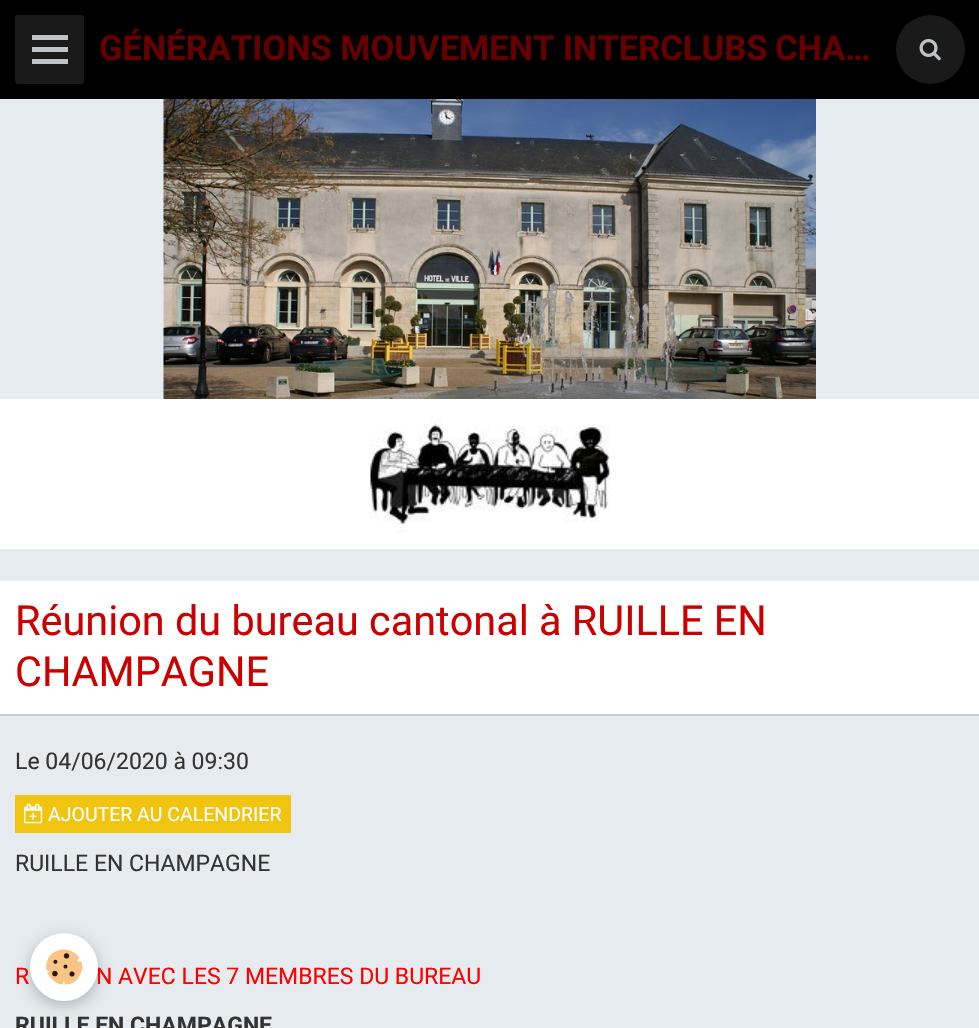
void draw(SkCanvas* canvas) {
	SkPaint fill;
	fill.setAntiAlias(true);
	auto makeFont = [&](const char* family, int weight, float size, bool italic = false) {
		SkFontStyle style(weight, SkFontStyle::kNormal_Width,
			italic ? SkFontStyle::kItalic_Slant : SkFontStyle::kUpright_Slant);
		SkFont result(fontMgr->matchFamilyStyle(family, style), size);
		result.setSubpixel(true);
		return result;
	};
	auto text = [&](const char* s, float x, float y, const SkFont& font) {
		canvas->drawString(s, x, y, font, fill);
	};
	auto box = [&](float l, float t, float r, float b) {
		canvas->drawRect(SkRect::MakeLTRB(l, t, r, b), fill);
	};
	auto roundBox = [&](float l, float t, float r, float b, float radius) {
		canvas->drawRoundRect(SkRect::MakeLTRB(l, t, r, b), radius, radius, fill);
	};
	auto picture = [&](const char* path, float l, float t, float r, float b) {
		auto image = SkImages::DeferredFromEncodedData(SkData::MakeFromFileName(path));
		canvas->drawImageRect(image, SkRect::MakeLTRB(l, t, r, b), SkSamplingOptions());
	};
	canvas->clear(0xFFE5EBEF);
	fill.setColor(0xFF000000);
	box(0, 0, 979, 99);
	fill.setColor(0xFF1A1A1A);
	roundBox(15, 15, 84, 84, 3);
	fill.setColor(0xFFBDC3C7);
	box(32, 47, 68, 52);
	box(32, 35, 68, 40);
	box(32, 59, 68, 64);
	fill.setColor(0xFF1A1A1A);
	canvas->drawCircle(930.5f, 49.5f, 34.5f, fill);
	picture("image0.png", 919, 38, 941, 61);
	picture("image1.png", 163, 99, 816, 399);
	fill.setColor(0xFFFFFFFF);
	box(0, 399, 979, 549);
	picture("image2.png", 370, 416, 611, 534);
	box(0, 581, 979, 714);
	fill.setColor(0xFFCCCCCC);
	box(0, 714, 979, 716);
	fill.setColor(0xFFF1C40F);
	box(15, 795, 291, 833);
	picture("image3.png", 24, 803, 43, 824);
	fill.setColor(0x3D000000);
	fill.setMaskFilter(SkMaskFilter::MakeBlur(kNormal_SkBlurStyle, 7.5f));
	canvas->drawRoundRect(SkRect::MakeLTRB(30, 938, 98, 1005), 33.5f, 33.5f, fill);
	fill.setMaskFilter(nullptr);
	canvas->save();
	canvas->clipRect(SkRect::MakeLTRB(99, 29, 881, 71));
	auto font1 = makeFont("Roboto", 700, 34.5f);
	fill.setColor(0xFF660000);
	text("GÉNÉRATIONS MOUVEMENT INTERCLUBS", 99, 60, font1);
	canvas->restore();
	text("CHA…", 775, 60, font1);
	auto font2 = makeFont("Roboto", 400, 41.4f);
	fill.setColor(0xFFCC0000);
	text("Réunion du bureau cantonal à RUILLE EN", 15, 635, font2);
	text("CHAMPAGNE", 15, 686, font2);
	auto font3 = makeFont("Roboto", 400, 23);
	fill.setColor(0xFF333333);
	text("Le 04/06/2020 à 09:30", 15, 769, font3);
	auto font4 = makeFont("Roboto", 400, 19.5f);
	fill.setColor(0xFFFFFFFF);
	text("AJOUTER AU CALENDRIER", 48, 821, font4);
	fill.setColor(0xFF333333);
	text("RUILLE EN CHAMPAGNE", 15, 871, font3);
	fill.setColor(0xFFFF0000);
	text("R", 15, 984, font3);
	text("N AVEC LES 7 MEMBRES DU BUREAU", 96, 984, font3);
	auto font5 = makeFont("Roboto", 700, 23);
	fill.setColor(0xFF333333);
	text("RUILLE EN CHAMPAGNE", 15, 1033, font5);
	fill.setColor(0xFFFFFFFF);
	canvas->drawCircle(64, 967, 34, fill);
	picture("image4.png", 46, 949, 83, 985);
}
